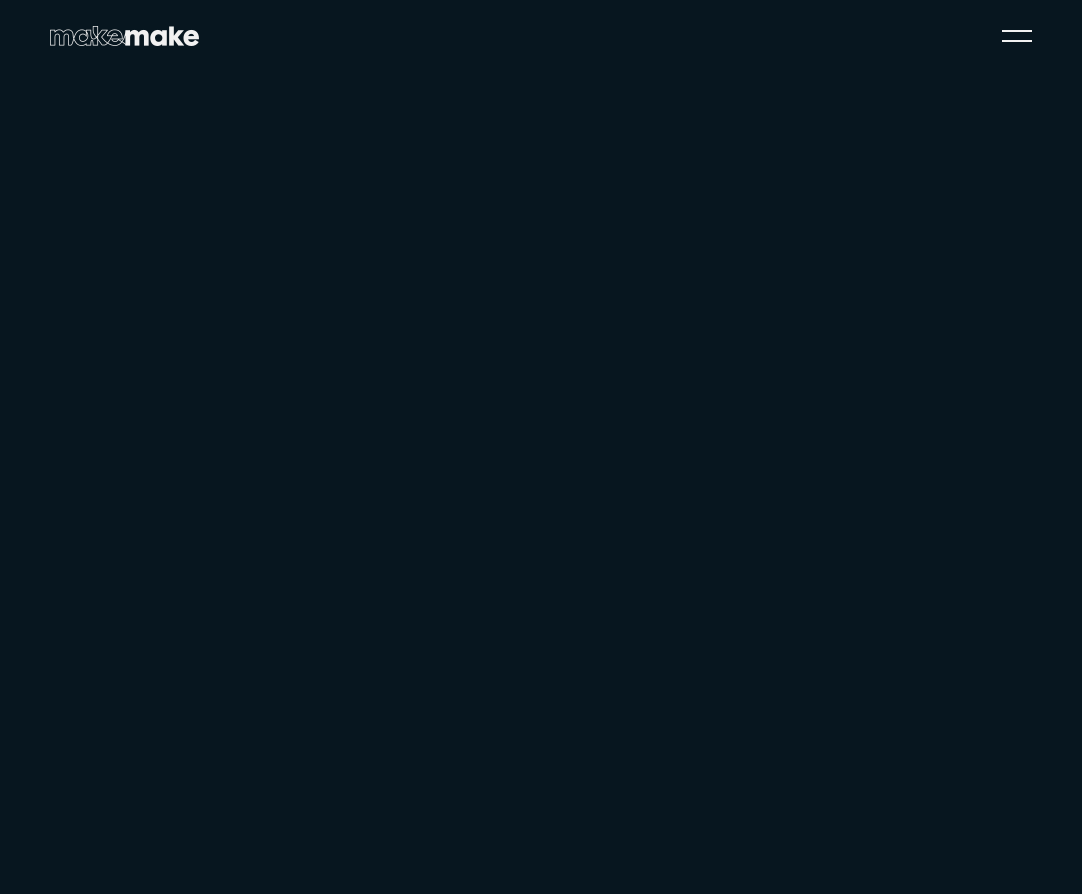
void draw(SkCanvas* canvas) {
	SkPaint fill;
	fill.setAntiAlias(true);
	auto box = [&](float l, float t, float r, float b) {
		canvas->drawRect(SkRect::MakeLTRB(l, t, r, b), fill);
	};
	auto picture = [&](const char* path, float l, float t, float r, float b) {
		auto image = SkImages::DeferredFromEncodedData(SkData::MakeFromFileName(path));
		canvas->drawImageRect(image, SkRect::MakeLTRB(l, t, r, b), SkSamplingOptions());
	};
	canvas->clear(0xFF07161F);
	picture("image0.png", 50, 26, 199, 46);
	fill.setColor(0xFFF1F1F1);
	box(1002, 30, 1032, 32);
	box(1002, 40, 1032, 42);
}
